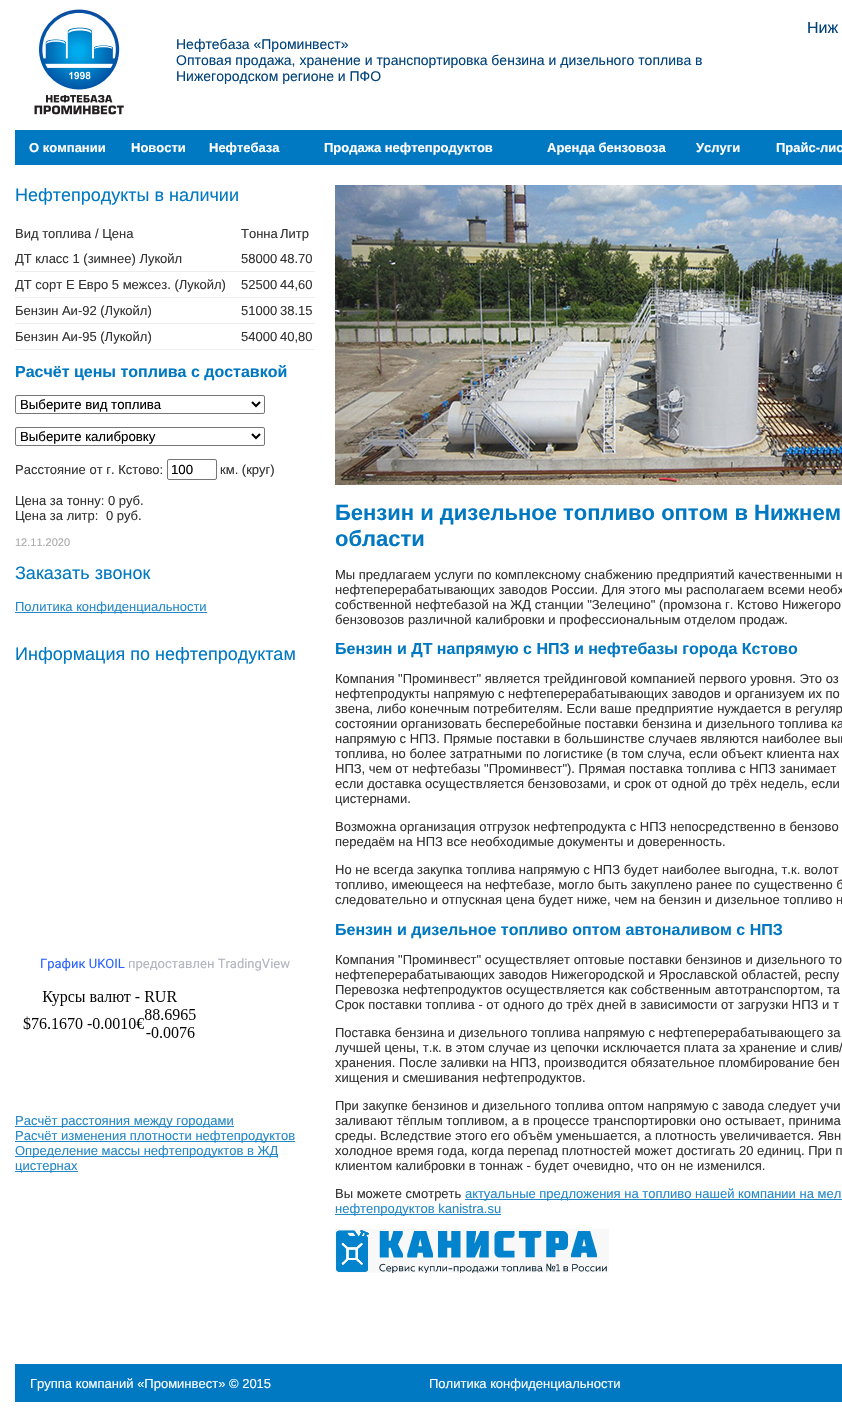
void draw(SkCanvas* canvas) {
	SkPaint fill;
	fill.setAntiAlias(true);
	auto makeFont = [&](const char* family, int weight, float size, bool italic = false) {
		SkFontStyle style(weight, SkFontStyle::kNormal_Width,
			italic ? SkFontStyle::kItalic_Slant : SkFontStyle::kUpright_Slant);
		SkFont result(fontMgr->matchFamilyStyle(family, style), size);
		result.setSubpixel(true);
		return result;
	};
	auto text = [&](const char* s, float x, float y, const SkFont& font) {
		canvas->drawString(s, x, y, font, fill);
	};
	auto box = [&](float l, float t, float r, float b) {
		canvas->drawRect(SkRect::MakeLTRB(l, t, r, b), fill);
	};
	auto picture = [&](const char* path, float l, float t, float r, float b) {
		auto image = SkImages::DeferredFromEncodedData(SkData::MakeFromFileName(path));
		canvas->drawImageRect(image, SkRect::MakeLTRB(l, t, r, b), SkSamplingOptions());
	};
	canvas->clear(0xFFFFFFFF);
	picture("image0.png", 34, 9, 124, 115);
	fill.setColor(0xFF0079C2);
	box(15, 130, 842, 165);
	fill.setColor(0xFFEEEEEE);
	box(15, 271, 315, 272);
	box(15, 297, 315, 298);
	box(15, 323, 315, 324);
	box(15, 349, 315, 350);
	fill.setStyle(SkPaint::kStroke_Style);
	fill.setStrokeWidth(1);
	fill.setColor(0xFF767676);
	canvas->drawRoundRect(SkRect::MakeLTRB(15.5f, 395.5f, 264.5f, 413.5f), 1.5f, 1.5f, fill);
	fill.setStrokeWidth(2);
	fill.setColor(0xFF000000);
	canvas->drawPath(SkPathBuilder().moveTo(252, 402).lineTo(256, 406).lineTo(260, 402).detach(), fill);
	fill.setStrokeWidth(1);
	fill.setColor(0xFF767676);
	canvas->drawRoundRect(SkRect::MakeLTRB(15.5f, 427.5f, 264.5f, 445.5f), 1.5f, 1.5f, fill);
	fill.setStrokeWidth(2);
	fill.setColor(0xFF000000);
	canvas->drawPath(SkPathBuilder().moveTo(252, 434).lineTo(256, 438).lineTo(260, 434).detach(), fill);
	fill.setStrokeWidth(1);
	fill.setColor(0xFF767676);
	canvas->drawRoundRect(SkRect::MakeLTRB(167.5f, 459.5f, 216.5f, 479.5f), 1.5f, 1.5f, fill);
	fill.setStyle(SkPaint::kFill_Style);
	fill.setColor(0xFF2488C8);
	box(15, 612, 207, 613);
	picture("image1.png", 23, 991, 196, 1038);
	box(15, 1126, 234, 1127);
	box(15, 1141, 295, 1142);
	box(15, 1156, 278, 1157);
	box(15, 1171, 78, 1172);
	picture("image2.png", 335, 185, 842, 485);
	box(465, 1199, 842, 1200);
	box(335, 1214, 501, 1215);
	picture("image3.png", 335, 1229, 609, 1273);
	fill.setColor(0xFF0079C2);
	box(15, 1364, 842, 1402);
	auto font1 = makeFont("Liberation Sans", 400, 16);
	fill.setColor(0xFF00427A);
	text("Ниж", 807, 33, font1);
	auto font2 = makeFont("Liberation Sans", 400, 14);
	text("Нефтебаза «Проминвест»", 176, 49, font2);
	text("Оптовая продажа, хранение и транспортировка бензина и дизельного топлива в", 176, 65, font2);
	text("Нижегородском регионе и ПФО", 176, 81, font2);
	auto font3 = makeFont("Liberation Sans", 700, 13);
	fill.setColor(0xFFFFFFFF);
	text("О компании", 29, 152, font3);
	text("Новости", 131, 152, font3);
	text("Нефтебаза", 209, 152, font3);
	text("Продажа нефтепродуктов", 324, 152, font3);
	text("Аренда бензовоза", 547, 152, font3);
	text("Услуги", 696, 152, font3);
	text("Прайс-лис", 776, 152, font3);
	auto font4 = makeFont("Liberation Sans", 400, 18);
	fill.setColor(0xFF0079C2);
	text("Нефтепродукты в наличии", 15, 201, font4);
	auto font5 = makeFont("Liberation Sans", 400, 13);
	fill.setColor(0xFF333333);
	text("Вид топлива / Цена", 15, 238, font5);
	text("Тонна", 241, 238, font5);
	text("Литр", 280, 238, font5);
	text("ДТ класс 1 (зимнее) Лукойл", 15, 263, font5);
	text("58000", 241, 263, font5);
	text("48.70", 280, 263, font5);
	text("ДТ сорт Е Евро 5 межсез. (Лукойл)", 15, 289, font5);
	text("52500", 241, 289, font5);
	text("44,60", 280, 289, font5);
	text("Бензин Аи-92 (Лукойл)", 15, 315, font5);
	text("51000", 241, 315, font5);
	text("38.15", 280, 315, font5);
	text("Бензин Аи-95 (Лукойл)", 15, 341, font5);
	text("54000", 241, 341, font5);
	text("40,80", 280, 341, font5);
	auto font6 = makeFont("Liberation Sans", 700, 16);
	fill.setColor(0xFF0079C2);
	text("Расчёт цены топлива с доставкой", 15, 377, font6);
	auto font7 = makeFont("Liberation Sans", 400, 13.25f);
	fill.setColor(0xFF000000);
	text("Выберите вид топлива", 20, 409, font7);
	text("Выберите калибровку", 20, 441, font7);
	fill.setColor(0xFF333333);
	text("Расстояние от г. Кстово:", 15, 474, font5);
	fill.setColor(0xFF000000);
	text("100", 171, 474, font7);
	fill.setColor(0xFF333333);
	text("км. (круг)", 220, 474, font5);
	text("Цена за тонну: 0 руб.", 15, 505, font5);
	text("Цена за литр:", 15, 520, font5);
	text("0 руб.", 106, 520, font5);
	auto font8 = makeFont("Liberation Sans", 400, 11);
	fill.setColor(0xFFAAAAAA);
	text("12.11.2020", 15, 546, font8);
	fill.setColor(0xFF0079C2);
	text("Заказать звонок", 15, 579, font4);
	fill.setColor(0xFF2488C8);
	text("Политика конфиденциальности", 15, 611, font5);
	fill.setColor(0xFF0079C2);
	text("Информация по нефтепродуктам", 15, 660, font4);
	auto font9 = makeFont("Roboto", 400, 13);
	fill.setColor(0xFF2962FF);
	text("График UKOIL", 40, 968, font9);
	fill.setColor(0xFFB2B5BE);
	text("предоставлен TradingView", 128, 968, font9);
	fill.setColor(0xFF2488C8);
	text("Расчёт расстояния между городами", 15, 1125, font5);
	text("Расчёт изменения плотности нефтепродуктов", 15, 1140, font5);
	text("Определение массы нефтепродуктов в ЖД", 15, 1155, font5);
	text("цистернах", 15, 1170, font5);
	auto font10 = makeFont("Liberation Sans", 700, 22);
	fill.setColor(0xFF0079C2);
	text("Бензин и дизельное топливо оптом в Нижнем", 335, 520, font10);
	text("области", 335, 546, font10);
	fill.setColor(0xFF333333);
	text("Мы предлагаем услуги по комплексному снабжению предприятий качественными н", 335, 579, font5);
	text("нефтеперерабатывающих заводов России. Для этого мы располагаем всеми необх", 335, 594, font5);
	text("собственной нефтебазой на ЖД станции \"Зелецино\" (промзона г. Кстово Нижегоро", 335, 609, font5);
	text("бензовозов различной калибровки и профессиональным отделом продаж.", 335, 624, font5);
	fill.setColor(0xFF0079C2);
	text("Бензин и ДТ напрямую с НПЗ и нефтебазы города Кстово", 335, 654, font6);
	fill.setColor(0xFF333333);
	text("Компания \"Проминвест\" является трейдинговой компанией первого уровня. Это оз", 335, 683, font5);
	text("нефтепродукты напрямую с нефтеперерабатывающих заводов и организуем их по", 335, 698, font5);
	text("звена, либо конечным потребителям. Если ваше предприятие нуждается в регуляр", 335, 713, font5);
	text("состоянии организовать бесперебойные поставки бензина и дизельного топлива ка", 335, 728, font5);
	text("напрямую с НПЗ. Прямые поставки в большинстве случаев являются наиболее выг", 335, 743, font5);
	text("топлива, но более затратными по логистике (в том случа, если объект клиента нах", 335, 758, font5);
	text("НПЗ, чем от нефтебазы \"Проминвест\"). Прямая поставка топлива с НПЗ занимает", 335, 773, font5);
	text("если доставка осуществляется бензовозами, и срок от одной до трёх недель, если", 335, 788, font5);
	text("цистернами.", 335, 803, font5);
	text("Возможна организация отгрузок нефтепродукта с НПЗ непосредственно в бензово", 335, 831, font5);
	text("передаём на НПЗ все необходимые документы и доверенность.", 335, 846, font5);
	text("Но не всегда закупка топлива напрямую с НПЗ будет наиболее выгодна, т.к. волот", 335, 874, font5);
	text("топливо, имеющееся на нефтебазе, могло быть закуплено ранее по существенно б", 335, 889, font5);
	text("следовательно и отпускная цена будет ниже, чем на бензин и дизельное топливо н", 335, 904, font5);
	fill.setColor(0xFF0079C2);
	text("Бензин и дизельное топливо оптом автоналивом с НПЗ", 335, 935, font6);
	fill.setColor(0xFF333333);
	text("Компания \"Проминвест\" осуществляет оптовые поставки бензинов и дизельного то", 335, 964, font5);
	text("нефтеперерабатывающих заводов Нижегородской и Ярославской областей, респу", 335, 979, font5);
	text("Перевозка нефтепродуктов осуществляется как собственным автотранспортом, та", 335, 994, font5);
	text("Срок поставки топлива - от одного до трёх дней в зависимости от загрузки НПЗ и т", 335, 1009, font5);
	text("Поставка бензина и дизельного топлива напрямую с нефтеперерабатывающего за", 335, 1037, font5);
	text("лучшей цены, т.к. в этом случае из цепочки исключается плата за хранение и слив/", 335, 1052, font5);
	text("хранения. После заливки на НПЗ, производится обязательное пломбирование бен", 335, 1067, font5);
	text("хищения и смешивания нефтепродуктов.", 335, 1082, font5);
	text("При закупке бензинов и дизельного топлива оптом напрямую с завода следует учи", 335, 1110, font5);
	text("заливают тёплым топливом, а в процессе транспортировки оно остывает, принима", 335, 1125, font5);
	text("среды. Вследствие этого его объём уменьшается, а плотность увеличивается. Явн", 335, 1140, font5);
	text("холодное время года, когда перепад плотностей может достигать 20 единиц. При п", 335, 1155, font5);
	text("клиентом калибровки в тоннаж - будет очевидно, что он не изменился.", 335, 1170, font5);
	text("Вы можете смотреть", 335, 1198, font5);
	fill.setColor(0xFF2488C8);
	text("актуальные предложения на топливо нашей компании на мел", 465, 1198, font5);
	text("нефтепродуктов kanistra.su", 335, 1213, font5);
	fill.setColor(0xFFFFFFFF);
	text("Группа компаний «Проминвест» © 2015", 30, 1388, font5);
	text("Политика конфиденциальности", 429, 1388, font5);
}
